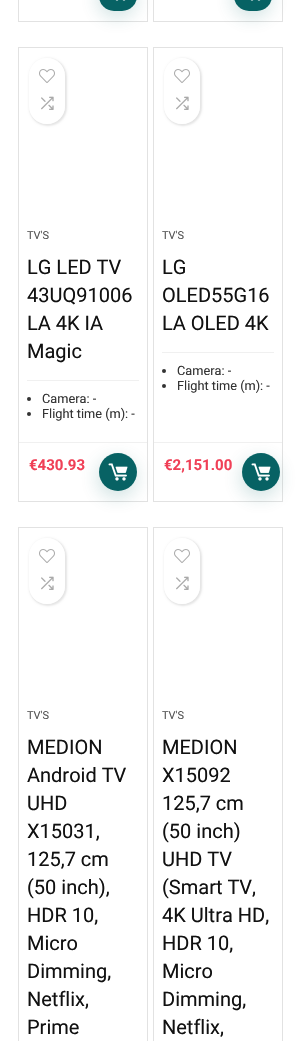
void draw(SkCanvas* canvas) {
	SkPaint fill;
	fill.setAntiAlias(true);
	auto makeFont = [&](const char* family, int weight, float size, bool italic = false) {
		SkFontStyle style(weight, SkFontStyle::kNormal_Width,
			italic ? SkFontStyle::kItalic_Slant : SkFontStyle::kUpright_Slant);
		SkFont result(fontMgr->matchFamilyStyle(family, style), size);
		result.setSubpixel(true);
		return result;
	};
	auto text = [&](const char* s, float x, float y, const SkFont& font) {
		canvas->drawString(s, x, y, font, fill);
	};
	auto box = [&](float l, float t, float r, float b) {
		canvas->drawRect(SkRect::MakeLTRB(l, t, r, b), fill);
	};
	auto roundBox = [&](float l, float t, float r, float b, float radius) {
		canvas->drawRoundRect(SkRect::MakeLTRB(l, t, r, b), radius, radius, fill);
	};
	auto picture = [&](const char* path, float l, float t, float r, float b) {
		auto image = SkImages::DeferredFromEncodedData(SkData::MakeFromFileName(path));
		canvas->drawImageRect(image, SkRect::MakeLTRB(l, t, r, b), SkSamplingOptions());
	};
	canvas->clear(0xFFFFFFFF);
	fill.setStyle(SkPaint::kStroke_Style);
	fill.setStrokeWidth(1);
	fill.setColor(0xFFE2E2E2);
	canvas->drawRect(SkRect::MakeLTRB(18.5f, -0.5f, 147.5f, 21.5f), fill);
	fill.setStyle(SkPaint::kFill_Style);
	fill.setColor(0x33076264);
	fill.setMaskFilter(SkMaskFilter::MakeBlur(kNormal_SkBlurStyle, 9.5f));
	canvas->drawRoundRect(SkRect::MakeLTRB(98, -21, 136, 17), 19, 19, fill);
	fill.setMaskFilter(nullptr);
	fill.setColor(0xFF076264);
	roundBox(99, -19, 137, 11, 19);
	picture("image0.png", 115, 0, 126, 1);
	fill.setStyle(SkPaint::kStroke_Style);
	fill.setColor(0xFFE2E2E2);
	canvas->drawRect(SkRect::MakeLTRB(153.5f, -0.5f, 282.5f, 21.5f), fill);
	fill.setStyle(SkPaint::kFill_Style);
	fill.setColor(0x33076264);
	fill.setMaskFilter(SkMaskFilter::MakeBlur(kNormal_SkBlurStyle, 9.5f));
	canvas->drawRoundRect(SkRect::MakeLTRB(233, -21, 271, 17), 19, 19, fill);
	fill.setMaskFilter(nullptr);
	fill.setColor(0xFF076264);
	roundBox(234, -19, 272, 11, 19);
	picture("image0.png", 250, 0, 261, 1);
	fill.setStyle(SkPaint::kStroke_Style);
	fill.setColor(0xFFE2E2E2);
	canvas->drawRect(SkRect::MakeLTRB(18.5f, 47.5f, 147.5f, 501.5f), fill);
	canvas->save();
	canvas->clipPath(SkPathBuilder(SkPathFillType::kEvenOdd).moveTo(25, 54).lineTo(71, 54).lineTo(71, 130).lineTo(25, 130).close().moveTo(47, 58).cubicTo(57, 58, 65, 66, 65, 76).lineTo(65, 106).cubicTo(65, 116, 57, 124, 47, 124).cubicTo(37, 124, 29, 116, 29, 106).lineTo(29, 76).cubicTo(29, 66, 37, 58, 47, 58).close().detach(), true);
	fill.setStyle(SkPaint::kFill_Style);
	fill.setColor(0x1A000000);
	fill.setMaskFilter(SkMaskFilter::MakeBlur(kNormal_SkBlurStyle, 1));
	canvas->drawRoundRect(SkRect::MakeLTRB(29, 58, 67, 126), 19, 19, fill);
	fill.setMaskFilter(nullptr);
	canvas->restore();
	fill.setColor(0xC7FFFFFF);
	roundBox(29, 58, 65, 124, 18);
	picture("image1.png", 39, 69, 55, 83);
	picture("image2.png", 41, 96, 54, 110);
	fill.setColor(0xFFF0F0F0);
	box(27, 380, 139, 381);
	fill.setColor(0xFF333333);
	canvas->drawCircle(29, 399, 2, fill);
	canvas->drawCircle(29, 414, 2, fill);
	fill.setColor(0xFFF0F0F0);
	box(19, 442, 147, 443);
	fill.setColor(0x33076264);
	fill.setMaskFilter(SkMaskFilter::MakeBlur(kNormal_SkBlurStyle, 9.5f));
	canvas->drawRoundRect(SkRect::MakeLTRB(98, 459, 136, 497), 19, 19, fill);
	fill.setMaskFilter(nullptr);
	fill.setColor(0xFF076264);
	canvas->drawCircle(118, 472, 19, fill);
	picture("image3.png", 108, 463, 128, 481);
	fill.setStyle(SkPaint::kStroke_Style);
	fill.setColor(0xFFE2E2E2);
	canvas->drawRect(SkRect::MakeLTRB(153.5f, 47.5f, 282.5f, 501.5f), fill);
	canvas->save();
	canvas->clipPath(SkPathBuilder(SkPathFillType::kEvenOdd).moveTo(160, 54).lineTo(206, 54).lineTo(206, 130).lineTo(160, 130).close().moveTo(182, 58).cubicTo(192, 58, 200, 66, 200, 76).lineTo(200, 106).cubicTo(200, 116, 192, 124, 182, 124).cubicTo(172, 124, 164, 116, 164, 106).lineTo(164, 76).cubicTo(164, 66, 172, 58, 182, 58).close().detach(), true);
	fill.setStyle(SkPaint::kFill_Style);
	fill.setColor(0x1A000000);
	fill.setMaskFilter(SkMaskFilter::MakeBlur(kNormal_SkBlurStyle, 1));
	canvas->drawRoundRect(SkRect::MakeLTRB(164, 58, 202, 126), 19, 19, fill);
	fill.setMaskFilter(nullptr);
	canvas->restore();
	fill.setColor(0xC7FFFFFF);
	roundBox(164, 58, 200, 124, 18);
	picture("image1.png", 174, 69, 190, 83);
	picture("image2.png", 176, 96, 189, 110);
	fill.setColor(0xFFF0F0F0);
	box(162, 352, 274, 353);
	fill.setColor(0xFF333333);
	canvas->drawCircle(164, 371, 2, fill);
	canvas->drawCircle(164, 386, 2, fill);
	fill.setColor(0xFFF0F0F0);
	box(154, 442, 282, 443);
	fill.setColor(0x33076264);
	fill.setMaskFilter(SkMaskFilter::MakeBlur(kNormal_SkBlurStyle, 9.5f));
	canvas->drawRoundRect(SkRect::MakeLTRB(241, 459, 279, 497), 19, 19, fill);
	fill.setMaskFilter(nullptr);
	fill.setColor(0xFF076264);
	canvas->drawCircle(261, 472, 19, fill);
	picture("image3.png", 251, 463, 271, 481);
	fill.setStyle(SkPaint::kStroke_Style);
	fill.setColor(0xFFE2E2E2);
	canvas->drawRect(SkRect::MakeLTRB(18.5f, 527.5f, 147.5f, 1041.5f), fill);
	canvas->save();
	canvas->clipPath(SkPathBuilder(SkPathFillType::kEvenOdd).moveTo(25, 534).lineTo(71, 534).lineTo(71, 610).lineTo(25, 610).close().moveTo(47, 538).cubicTo(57, 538, 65, 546, 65, 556).lineTo(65, 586).cubicTo(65, 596, 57, 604, 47, 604).cubicTo(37, 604, 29, 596, 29, 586).lineTo(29, 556).cubicTo(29, 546, 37, 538, 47, 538).close().detach(), true);
	fill.setStyle(SkPaint::kFill_Style);
	fill.setColor(0x1A000000);
	fill.setMaskFilter(SkMaskFilter::MakeBlur(kNormal_SkBlurStyle, 1));
	canvas->drawRoundRect(SkRect::MakeLTRB(29, 538, 67, 606), 19, 19, fill);
	fill.setMaskFilter(nullptr);
	canvas->restore();
	fill.setColor(0xC7FFFFFF);
	roundBox(29, 538, 65, 604, 18);
	picture("image1.png", 39, 549, 55, 563);
	picture("image2.png", 41, 576, 54, 590);
	fill.setStyle(SkPaint::kStroke_Style);
	fill.setColor(0xFFE2E2E2);
	canvas->drawRect(SkRect::MakeLTRB(153.5f, 527.5f, 282.5f, 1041.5f), fill);
	canvas->save();
	canvas->clipPath(SkPathBuilder(SkPathFillType::kEvenOdd).moveTo(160, 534).lineTo(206, 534).lineTo(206, 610).lineTo(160, 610).close().moveTo(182, 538).cubicTo(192, 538, 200, 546, 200, 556).lineTo(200, 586).cubicTo(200, 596, 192, 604, 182, 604).cubicTo(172, 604, 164, 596, 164, 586).lineTo(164, 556).cubicTo(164, 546, 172, 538, 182, 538).close().detach(), true);
	fill.setStyle(SkPaint::kFill_Style);
	fill.setColor(0x1A000000);
	fill.setMaskFilter(SkMaskFilter::MakeBlur(kNormal_SkBlurStyle, 1));
	canvas->drawRoundRect(SkRect::MakeLTRB(164, 538, 202, 606), 19, 19, fill);
	fill.setMaskFilter(nullptr);
	canvas->restore();
	fill.setColor(0xC7FFFFFF);
	roundBox(164, 538, 200, 604, 18);
	picture("image1.png", 174, 549, 190, 563);
	picture("image2.png", 176, 576, 189, 590);
	auto font1 = makeFont("Roboto", 400, 11);
	fill.setColor(0xFF555555);
	text("TV'S", 27, 239, font1);
	auto font2 = makeFont("Roboto", 400, 20);
	fill.setColor(0xFF111111);
	text("LG LED TV", 27, 274, font2);
	text("43UQ91006", 27, 302, font2);
	text("LA 4K IA", 27, 330, font2);
	text("Magic", 27, 358, font2);
	auto font3 = makeFont("Roboto", 400, 12.75f);
	fill.setColor(0xFF333333);
	text("Camera: -", 42, 403, font3);
	text("Flight time (m): -", 42, 418, font3);
	auto font4 = makeFont("Roboto", 700, 15);
	fill.setColor(0xFFF04057);
	text("€430.93", 29, 470, font4);
	fill.setColor(0xFF555555);
	text("TV'S", 162, 239, font1);
	fill.setColor(0xFF111111);
	text("LG", 162, 274, font2);
	text("OLED55G16", 162, 302, font2);
	text("LA OLED 4K", 162, 330, font2);
	fill.setColor(0xFF333333);
	text("Camera: -", 177, 375, font3);
	text("Flight time (m): -", 177, 390, font3);
	fill.setColor(0xFFF04057);
	text("€2,151.00", 164, 470, font4);
	fill.setColor(0xFF555555);
	text("TV'S", 27, 719, font1);
	fill.setColor(0xFF111111);
	text("MEDION", 27, 754, font2);
	text("Android TV", 27, 782, font2);
	text("UHD", 27, 810, font2);
	text("X15031,", 27, 838, font2);
	text("125,7 cm", 27, 866, font2);
	text("(50 inch),", 27, 894, font2);
	text("HDR 10,", 27, 922, font2);
	text("Micro", 27, 950, font2);
	text("Dimming,", 27, 978, font2);
	text("Netflix,", 27, 1006, font2);
	text("Prime", 27, 1034, font2);
	fill.setColor(0xFF555555);
	text("TV'S", 162, 719, font1);
	fill.setColor(0xFF111111);
	text("MEDION", 162, 754, font2);
	text("X15092", 162, 782, font2);
	text("125,7 cm", 162, 810, font2);
	text("(50 inch)", 162, 838, font2);
	text("UHD TV", 162, 866, font2);
	text("(Smart TV,", 162, 894, font2);
	text("4K Ultra HD,", 162, 922, font2);
	text("HDR 10,", 162, 950, font2);
	text("Micro", 162, 978, font2);
	text("Dimming,", 162, 1006, font2);
	text("Netflix,", 162, 1034, font2);
}
